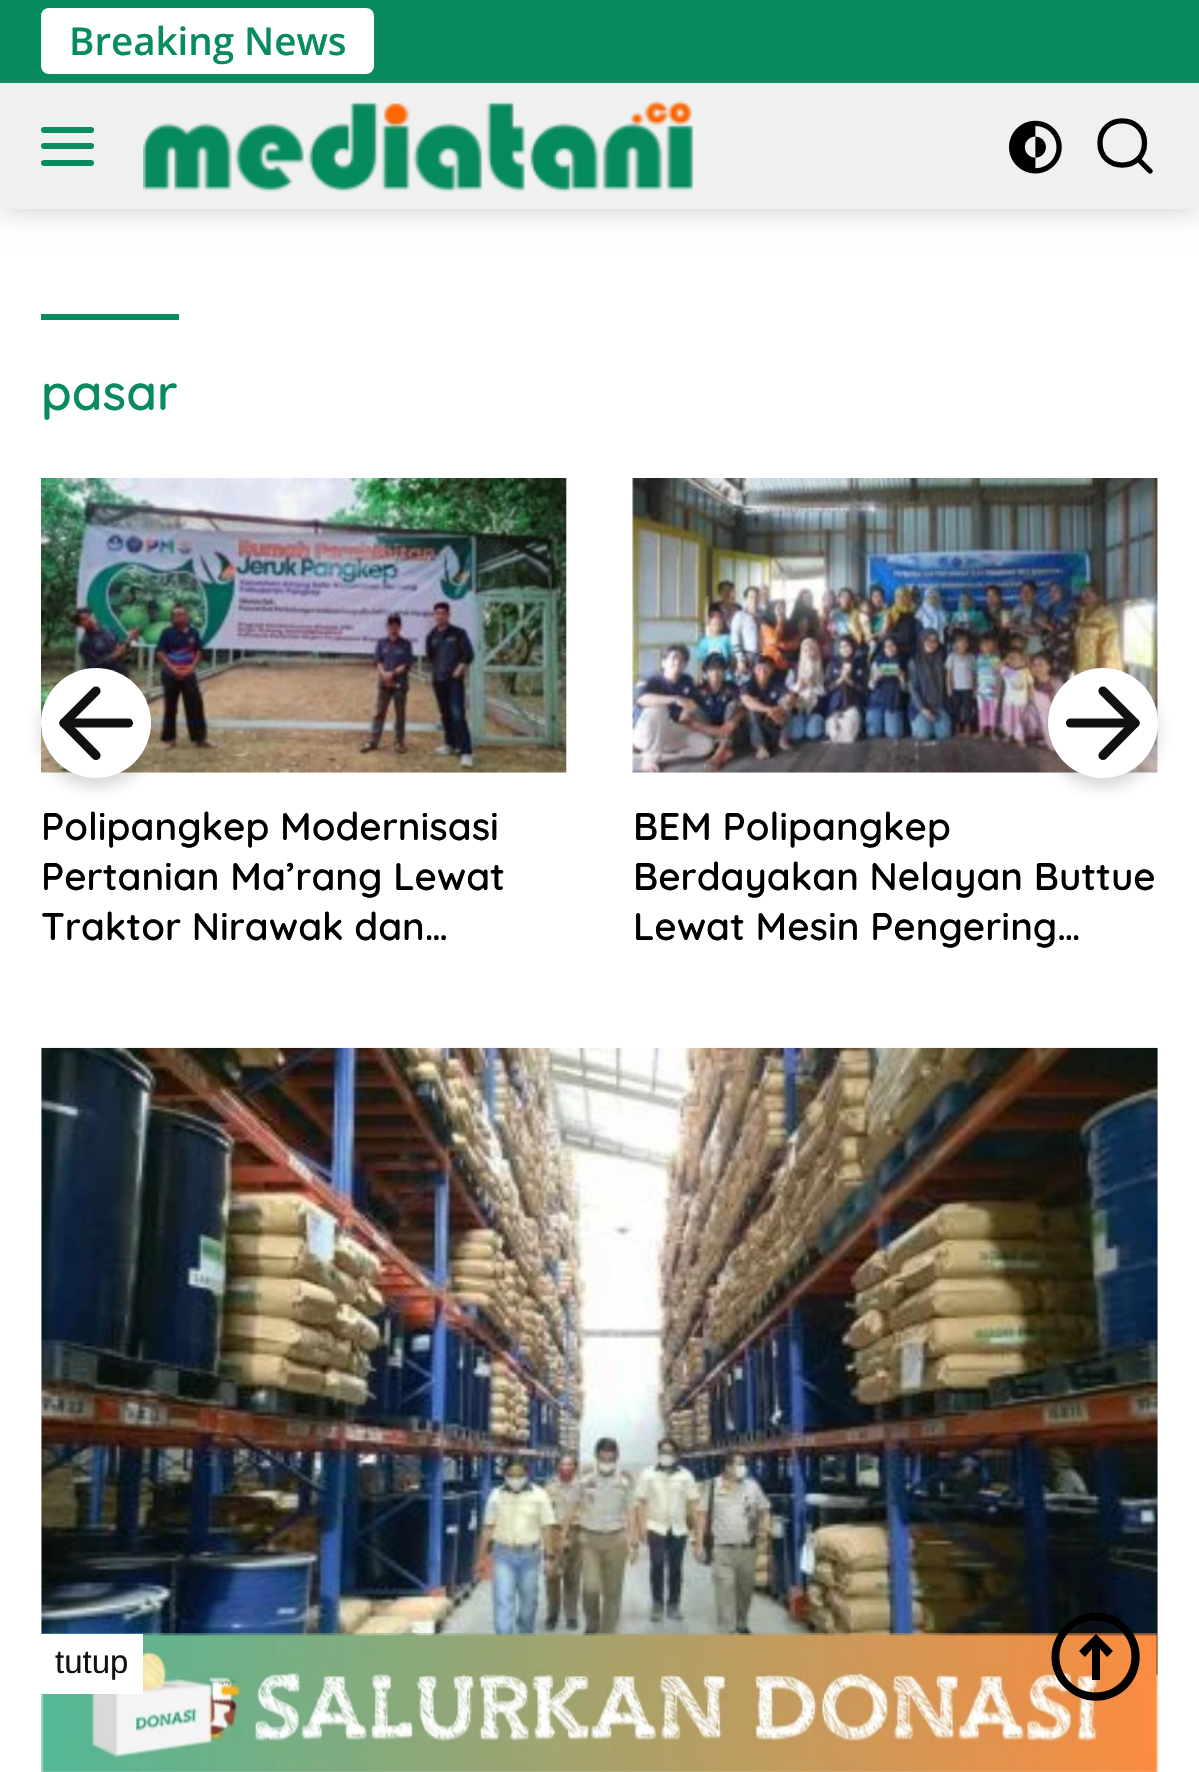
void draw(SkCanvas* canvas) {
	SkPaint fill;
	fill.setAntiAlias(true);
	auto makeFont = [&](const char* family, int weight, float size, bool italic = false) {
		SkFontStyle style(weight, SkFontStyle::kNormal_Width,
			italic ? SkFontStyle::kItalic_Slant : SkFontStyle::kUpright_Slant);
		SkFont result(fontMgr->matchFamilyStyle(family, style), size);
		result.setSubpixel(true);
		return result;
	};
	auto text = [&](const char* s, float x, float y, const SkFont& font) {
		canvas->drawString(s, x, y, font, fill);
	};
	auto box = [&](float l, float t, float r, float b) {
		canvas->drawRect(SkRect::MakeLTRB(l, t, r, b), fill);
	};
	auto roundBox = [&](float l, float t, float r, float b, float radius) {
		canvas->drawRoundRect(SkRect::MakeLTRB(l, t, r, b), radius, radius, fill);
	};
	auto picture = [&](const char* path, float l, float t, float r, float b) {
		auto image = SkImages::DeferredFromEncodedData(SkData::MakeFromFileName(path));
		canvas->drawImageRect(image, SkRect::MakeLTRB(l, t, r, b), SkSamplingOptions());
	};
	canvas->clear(0xFFFFFFFF);
	fill.setColor(0x33000000);
	fill.setMaskFilter(SkMaskFilter::MakeBlur(kNormal_SkBlurStyle, 14));
	canvas->drawRect(SkRect::MakeLTRB(0, 0, 1199, 209), fill);
	fill.setMaskFilter(nullptr);
	fill.setColor(0xFFF0F0F0);
	box(0, 83, 1199, 209);
	fill.setColor(0xFF088B5F);
	box(0, 0, 1199, 83);
	fill.setColor(0xFFFFFFFF);
	roundBox(41, 8, 374, 74, 8);
	fill.setColor(0xFF088B5F);
	roundBox(41, 127, 94, 133, 3);
	roundBox(41, 143, 94, 149, 3);
	roundBox(41, 160, 94, 166, 3);
	picture("image0.png", 143, 100, 693, 192);
	picture("image1.png", 1009, 120, 1062, 174);
	fill.setStyle(SkPaint::kStroke_Style);
	fill.setStrokeWidth(5.3f);
	fill.setStrokeCap(SkPaint::kRound_Cap);
	fill.setColor(0xFF000000);
	canvas->drawPath(SkPathBuilder().moveTo(1150, 171).lineTo(1138, 159).moveTo(1144.5f, 143).cubicTo(1144.5f, 172.5f, 1100, 172.5f, 1100, 143).cubicTo(1100, 113.5f, 1144.5f, 113.5f, 1144.5f, 143).close().detach(), fill);
	fill.setStyle(SkPaint::kFill_Style);
	fill.setColor(0xFF088B5F);
	box(41, 314, 179, 320);
	picture("image2.png", 41, 478, 567, 773);
	fill.setColor(0x33333333);
	fill.setMaskFilter(SkMaskFilter::MakeBlur(kNormal_SkBlurStyle, 8));
	canvas->drawRoundRect(SkRect::MakeLTRB(41, 677, 151, 787), 55, 55, fill);
	fill.setMaskFilter(nullptr);
	fill.setColor(0xFFFFFFFF);
	canvas->drawCircle(96, 723, 55, fill);
	fill.setStyle(SkPaint::kStroke_Style);
	fill.setStrokeWidth(9.2f);
	fill.setStrokeJoin(SkPaint::kRound_Join);
	fill.setColor(0xFF111111);
	canvas->drawPath(SkPathBuilder().moveTo(128.5f, 723).lineTo(64, 723).detach(), fill);
	canvas->drawPath(SkPathBuilder().moveTo(96, 755.5f).lineTo(64, 723).lineTo(96, 691).detach(), fill);
	picture("image3.png", 632, 478, 1158, 773);
	fill.setStyle(SkPaint::kFill_Style);
	fill.setColor(0x33333333);
	fill.setMaskFilter(SkMaskFilter::MakeBlur(kNormal_SkBlurStyle, 8));
	canvas->drawRoundRect(SkRect::MakeLTRB(1048, 677, 1158, 787), 55, 55, fill);
	fill.setMaskFilter(nullptr);
	fill.setColor(0xFFFFFFFF);
	canvas->drawCircle(1103, 723, 55, fill);
	fill.setStyle(SkPaint::kStroke_Style);
	fill.setColor(0xFF111111);
	canvas->drawPath(SkPathBuilder().moveTo(1070.5f, 723).lineTo(1135, 723).detach(), fill);
	canvas->drawPath(SkPathBuilder().moveTo(1103, 691).lineTo(1135, 723).lineTo(1103, 755.5f).detach(), fill);
	picture("image4.png", 41, 1047, 1158, 1675);
	picture("image5.png", 41, 1633, 1158, 1772);
	fill.setStyle(SkPaint::kFill_Style);
	fill.setColor(0xFFFFFFFF);
	box(41, 1634, 143, 1694);
	fill.setColor(0xFF000000);
	canvas->drawPath(SkPathBuilder().moveTo(1107, 1657).lineTo(1113, 1651).lineTo(1096, 1634).lineTo(1079, 1651).lineTo(1085, 1657).lineTo(1092, 1649).lineTo(1092, 1680).lineTo(1100, 1680).lineTo(1100, 1649).close().detach(), fill);
	canvas->drawPath(SkPathBuilder(SkPathFillType::kEvenOdd).moveTo(1127, 1626).cubicTo(1110, 1608, 1082, 1608, 1065, 1626).cubicTo(1047, 1643, 1047, 1671, 1065, 1688).cubicTo(1082, 1705, 1110, 1705, 1127, 1688).cubicTo(1144, 1671, 1144, 1643, 1127, 1626).close().moveTo(1121, 1631).cubicTo(1107, 1617, 1084, 1617, 1070, 1631).cubicTo(1056, 1645, 1056, 1668, 1070, 1682).cubicTo(1084, 1696, 1107, 1696, 1121, 1682).cubicTo(1135, 1668, 1135, 1645, 1121, 1631).close().detach(), fill);
	auto font1 = makeFont("Open Sans", 600, 38.5f);
	fill.setColor(0xFF088B5F);
	text("Breaking News", 69, 55, font1);
	auto font2 = makeFont("Quicksand", 600, 49.5f);
	text("pasar", 41, 410, font2);
	auto font3 = makeFont("Quicksand", 600, 38.5f);
	fill.setColor(0xFF000000);
	text("Polipangkep Modernisasi", 41, 840, font3);
	text("Pertanian Ma’rang Lewat", 41, 890, font3);
	text("Traktor Nirawak dan…", 41, 940, font3);
	text("BEM Polipangkep", 633, 840, font3);
	text("Berdayakan Nelayan Buttue", 633, 890, font3);
	text("Lewat Mesin Pengering…", 633, 940, font3);
	auto font4 = makeFont("Liberation Sans", 400, 33);
	fill.setColor(0xFF111111);
	text("tutup", 55, 1673, font4);
}
